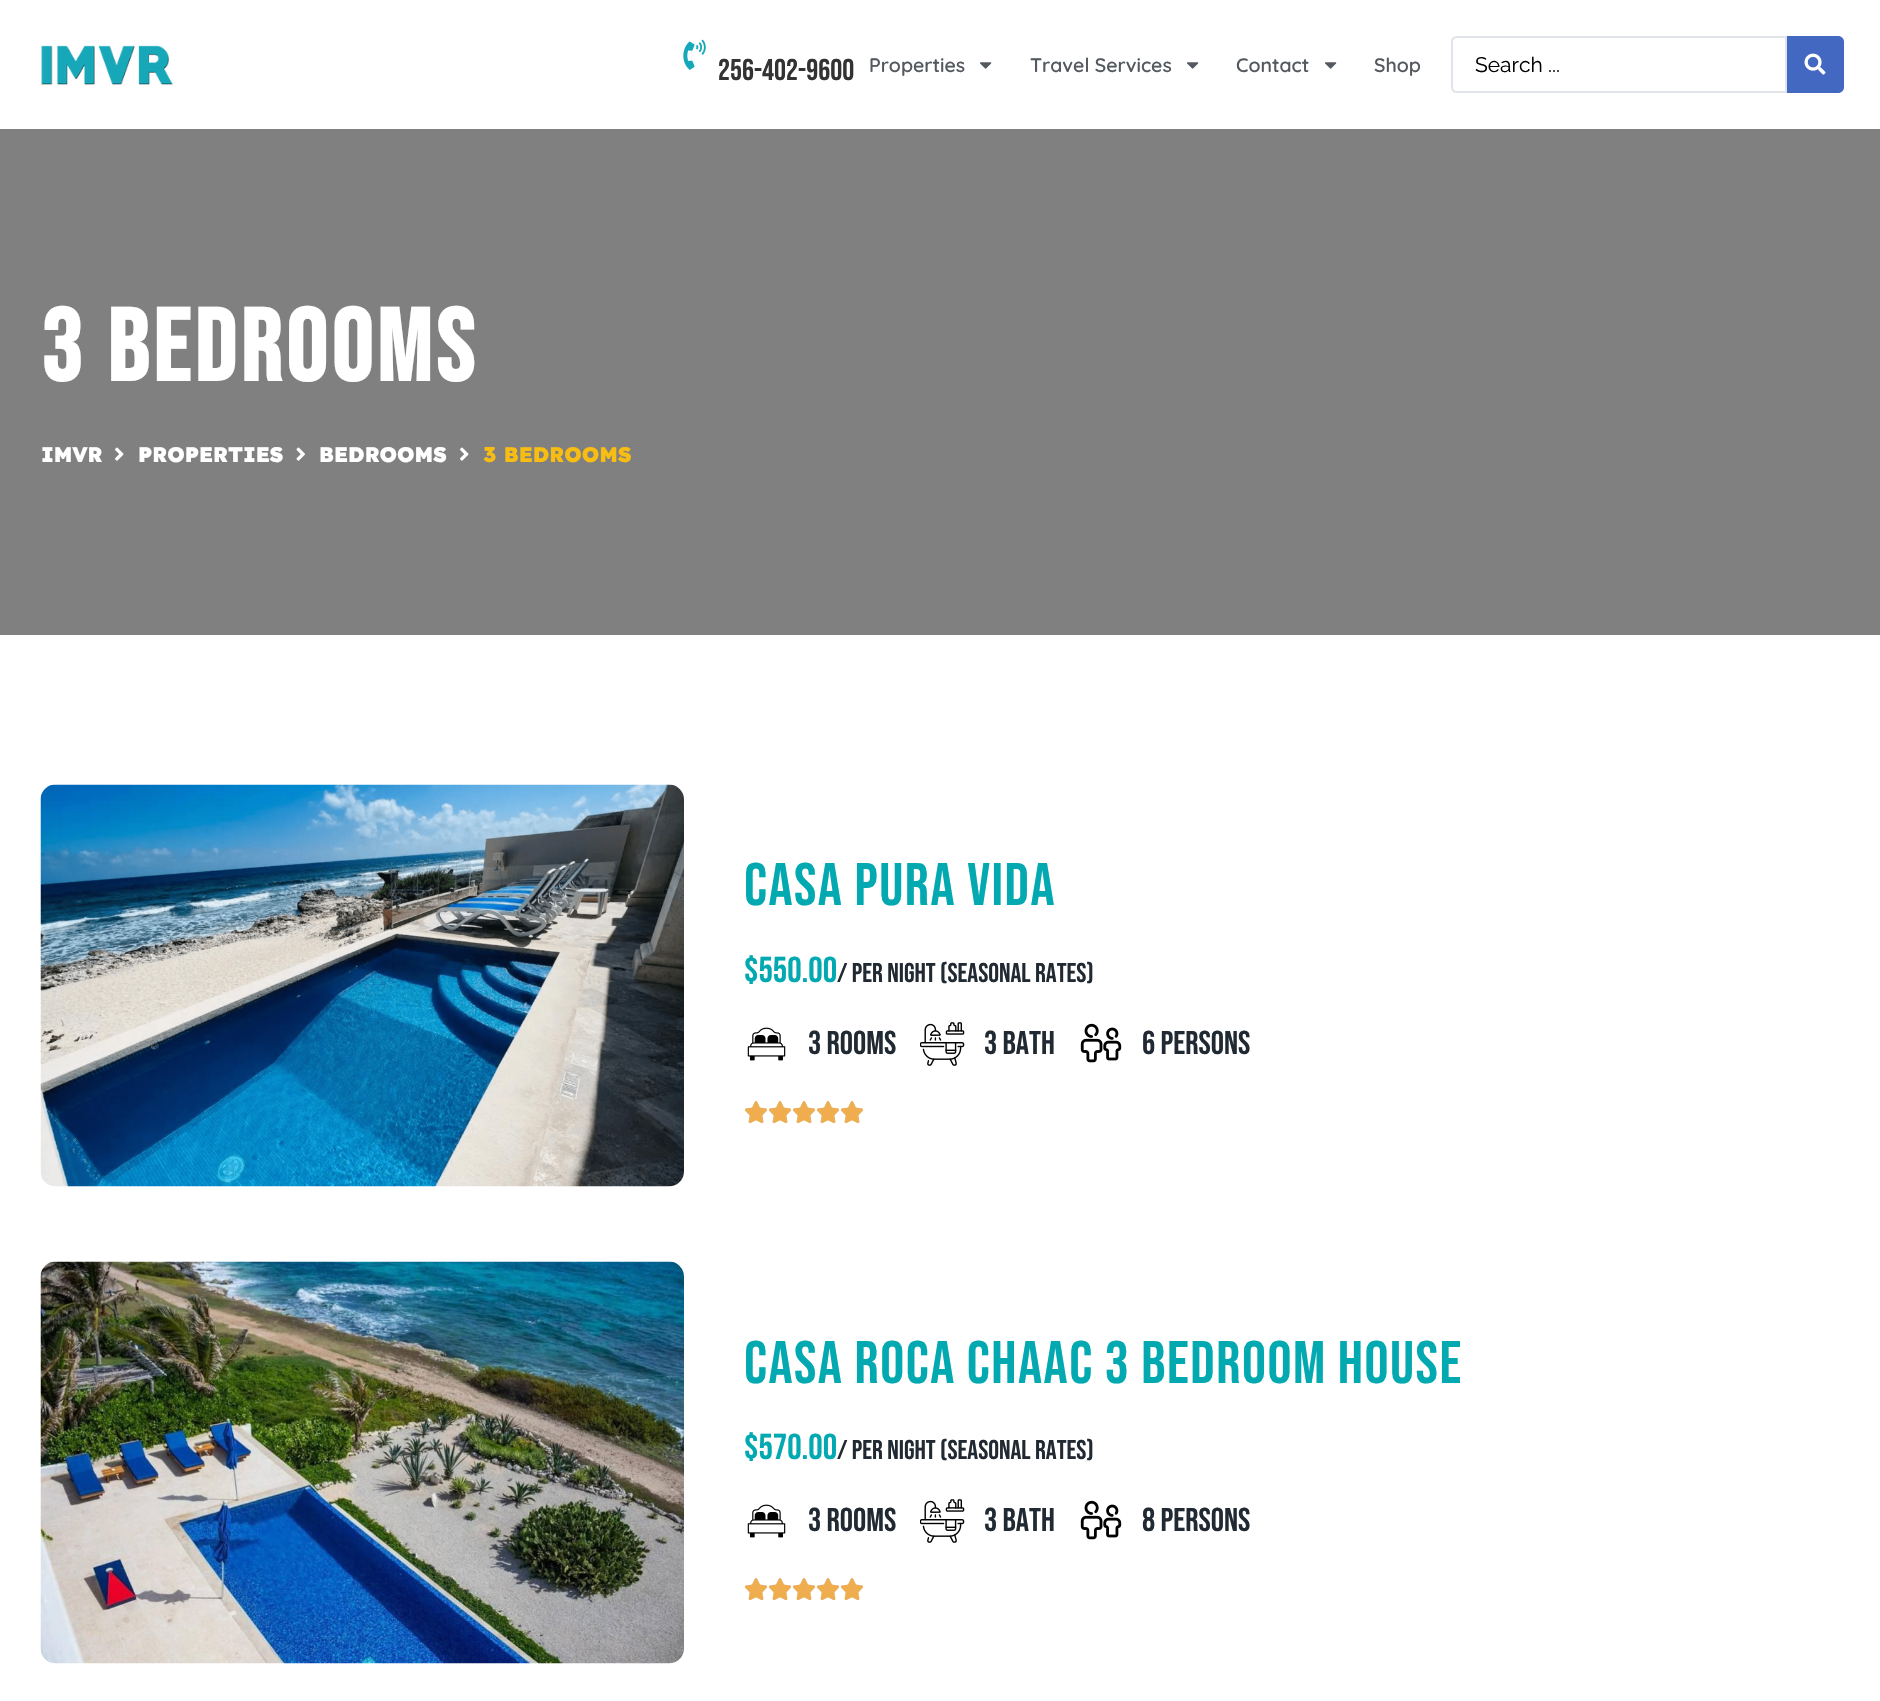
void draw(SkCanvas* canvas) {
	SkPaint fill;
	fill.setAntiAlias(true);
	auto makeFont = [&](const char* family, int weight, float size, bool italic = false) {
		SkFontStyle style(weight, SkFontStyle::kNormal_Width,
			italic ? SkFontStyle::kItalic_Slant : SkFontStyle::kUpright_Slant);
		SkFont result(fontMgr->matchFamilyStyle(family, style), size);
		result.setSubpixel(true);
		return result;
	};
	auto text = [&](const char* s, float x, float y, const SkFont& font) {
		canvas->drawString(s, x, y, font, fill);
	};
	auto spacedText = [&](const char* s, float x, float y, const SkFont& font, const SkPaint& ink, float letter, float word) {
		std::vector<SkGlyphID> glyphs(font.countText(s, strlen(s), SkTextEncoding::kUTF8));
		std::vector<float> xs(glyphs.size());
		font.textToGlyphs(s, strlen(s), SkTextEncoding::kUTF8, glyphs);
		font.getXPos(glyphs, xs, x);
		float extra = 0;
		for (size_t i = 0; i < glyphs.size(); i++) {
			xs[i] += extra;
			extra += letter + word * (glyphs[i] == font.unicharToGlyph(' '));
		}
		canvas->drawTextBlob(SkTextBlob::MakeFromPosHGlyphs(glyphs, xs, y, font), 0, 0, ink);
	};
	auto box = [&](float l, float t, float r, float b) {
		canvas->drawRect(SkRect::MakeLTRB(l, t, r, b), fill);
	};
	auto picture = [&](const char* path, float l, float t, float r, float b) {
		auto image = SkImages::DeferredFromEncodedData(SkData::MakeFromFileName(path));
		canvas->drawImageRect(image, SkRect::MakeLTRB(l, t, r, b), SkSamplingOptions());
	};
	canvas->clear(0xFFFFFFFF);
	picture("image0.png", 40, 45, 173, 86);
	picture("image1.png", 683, 39, 706, 70);
	picture("image2.png", 980, 62, 992, 69);
	picture("image2.png", 1187, 62, 1199, 69);
	picture("image2.png", 1325, 62, 1337, 69);
	fill.setStyle(SkPaint::kStroke_Style);
	fill.setStrokeWidth(2);
	fill.setColor(0xFFE1E5EB);
	canvas->drawPath(SkPathBuilder().moveTo(1457, 37).lineTo(1786, 37).lineTo(1786, 92).lineTo(1457, 92).cubicTo(1454, 92, 1452, 90, 1452, 87).lineTo(1452, 42).cubicTo(1452, 39, 1454, 37, 1457, 37).close().detach(), fill);
	fill.setStyle(SkPaint::kFill_Style);
	fill.setColor(0xFF4268C1);
	canvas->drawPath(SkPathBuilder().moveTo(1787, 36).lineTo(1838, 36).cubicTo(1841.5f, 36, 1844, 38.5f, 1844, 42).lineTo(1844, 87).cubicTo(1844, 90.5f, 1841.5f, 93, 1838, 93).lineTo(1787, 93).close().detach(), fill);
	picture("image3.png", 1804, 53, 1826, 75);
	fill.setColor(0xFF808080);
	box(0, 129, 1880, 635);
	picture("image4.png", 115, 447, 124, 461);
	picture("image5.png", 296, 447, 305, 461);
	picture("image4.png", 460, 447, 469, 461);
	picture("image6.png", 40, 784, 684, 1187);
	picture("image7.png", 747, 1027, 786, 1061);
	picture("image8.png", 920, 1022, 965, 1066);
	picture("image9.png", 1080, 1023, 1122, 1063);
	picture("image10.png", 745, 1101, 767, 1123);
	picture("image11.png", 745, 1101, 767, 1124);
	picture("image10.png", 769, 1101, 791, 1123);
	picture("image11.png", 769, 1101, 791, 1124);
	picture("image10.png", 793, 1101, 815, 1123);
	picture("image11.png", 793, 1101, 815, 1124);
	picture("image10.png", 817, 1101, 839, 1123);
	picture("image11.png", 817, 1101, 839, 1124);
	picture("image10.png", 841, 1101, 863, 1123);
	picture("image11.png", 841, 1101, 863, 1124);
	picture("image12.png", 40, 1261, 684, 1664);
	picture("image7.png", 747, 1504, 786, 1538);
	picture("image8.png", 920, 1499, 965, 1543);
	picture("image9.png", 1080, 1500, 1122, 1540);
	picture("image10.png", 745, 1578, 767, 1600);
	picture("image11.png", 745, 1578, 767, 1601);
	picture("image10.png", 769, 1578, 791, 1600);
	picture("image11.png", 769, 1578, 791, 1601);
	picture("image10.png", 793, 1578, 815, 1600);
	picture("image11.png", 793, 1578, 815, 1601);
	picture("image10.png", 817, 1578, 839, 1600);
	picture("image11.png", 817, 1578, 839, 1601);
	picture("image10.png", 841, 1578, 863, 1600);
	picture("image11.png", 841, 1578, 863, 1601);
	auto font1 = makeFont("Bebas Neue", 400, 30);
	fill.setColor(0xFF333333);
	text("256-402-9600", 718, 80, font1);
	auto font2 = makeFont("Quicksand", 600, 19.5f);
	fill.setColor(0xFF54595F);
	text("Properties", 869, 72, font2);
	text("Travel Services", 1030, 72, font2);
	text("Contact", 1236, 72, font2);
	text("Shop", 1374, 72, font2);
	auto font3 = makeFont("Raleway", 400, 21);
	fill.setColor(0xFF000000);
	text("Search ...", 1475, 72, font3);
	auto font4 = makeFont("Bebas Neue", 700, 102);
	fill.setColor(0xFFFFFFFF);
	spacedText("3 BEDROOMS", 41, 381, font4, fill, 4.5f, 0);
	auto font5 = makeFont("Lexend", 900, 21);
	text("IMVR", 41, 462, font5);
	text("PROPERTIES", 138, 462, font5);
	text("BEDROOMS", 319, 462, font5);
	fill.setColor(0xFFF8BD12);
	text("3 BEDROOMS", 483, 462, font5);
	auto font6 = makeFont("Bebas Neue", 400, 60);
	fill.setColor(0xFF02A9B0);
	spacedText("CASA PURA VIDA", 744, 905, font6, fill, 1.5f, 0);
	auto font7 = makeFont("Bebas Neue", 400, 36);
	text("$550.00", 744, 982, font7);
	auto font8 = makeFont("Bebas Neue", 400, 27);
	fill.setColor(0xFF212A33);
	text("/ PER NIGHT (SEASONAL RATES)", 837, 982, font8);
	auto font9 = makeFont("Bebas Neue", 400, 33);
	text("3 Rooms", 808, 1054, font9);
	text("3 Bath", 984, 1054, font9);
	text("6 Persons", 1142, 1054, font9);
	fill.setColor(0xFF02A9B0);
	spacedText("CASA ROCA CHAAC 3 BEDROOM HOUSE", 744, 1383, font6, fill, 1.5f, 0);
	text("$570.00", 744, 1459, font7);
	fill.setColor(0xFF212A33);
	text("/ PER NIGHT (SEASONAL RATES)", 837, 1459, font8);
	text("3 Rooms", 808, 1531, font9);
	text("3 Bath", 984, 1531, font9);
	text("8 Persons", 1142, 1531, font9);
}
